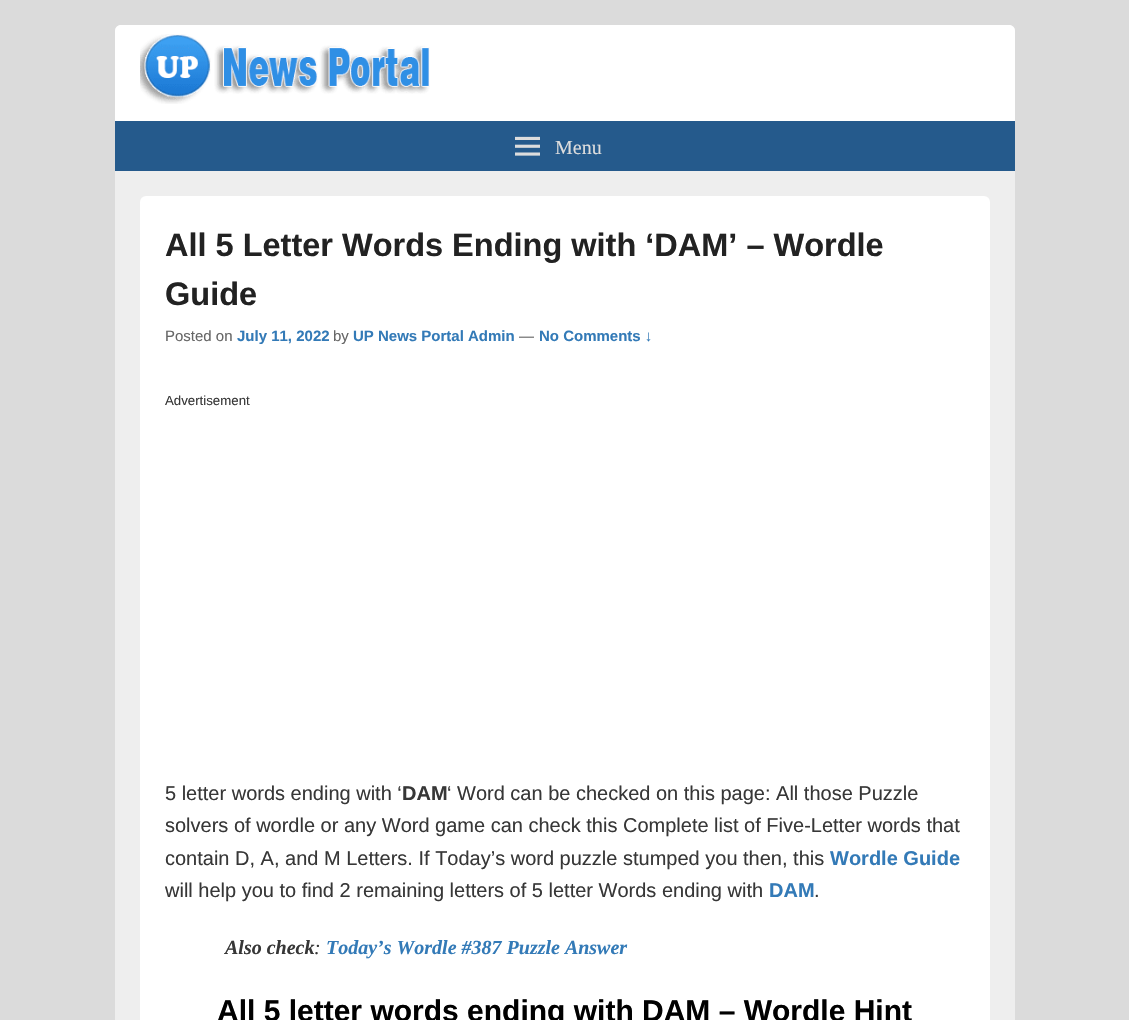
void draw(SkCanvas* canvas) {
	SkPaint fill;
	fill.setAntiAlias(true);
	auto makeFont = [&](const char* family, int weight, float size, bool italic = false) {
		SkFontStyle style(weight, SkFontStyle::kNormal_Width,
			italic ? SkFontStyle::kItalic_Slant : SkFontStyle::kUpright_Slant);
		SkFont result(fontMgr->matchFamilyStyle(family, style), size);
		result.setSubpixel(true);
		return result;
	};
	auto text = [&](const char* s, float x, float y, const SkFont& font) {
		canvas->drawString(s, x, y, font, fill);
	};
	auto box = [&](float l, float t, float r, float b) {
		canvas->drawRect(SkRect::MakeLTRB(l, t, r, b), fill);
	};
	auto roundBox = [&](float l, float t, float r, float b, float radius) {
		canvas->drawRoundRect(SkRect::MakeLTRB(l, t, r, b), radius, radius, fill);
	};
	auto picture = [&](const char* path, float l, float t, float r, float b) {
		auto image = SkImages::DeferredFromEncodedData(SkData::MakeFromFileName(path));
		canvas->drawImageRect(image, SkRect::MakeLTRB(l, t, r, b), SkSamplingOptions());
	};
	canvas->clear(0xFFDBDBDB);
	fill.setColor(0xFFEEEEEE);
	roundBox(115, 25, 1015, 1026, 6);
	fill.setColor(0xFFFFFFFF);
	canvas->drawPath(SkPathBuilder().moveTo(121, 25).lineTo(1009, 25).cubicTo(1012.5f, 25, 1015, 27.5f, 1015, 31).lineTo(1015, 171).lineTo(115, 171).lineTo(115, 31).cubicTo(115, 27.5f, 117.5f, 25, 121, 25).close().detach(), fill);
	picture("image0.png", 140, 34, 430, 104);
	fill.setColor(0xFF255A8C);
	box(115, 121, 1015, 171);
	picture("image1.png", 515, 136, 540, 156);
	fill.setColor(0xFFFFFFFF);
	roundBox(140, 196, 990, 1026, 6);
	auto font1 = makeFont("Liberation Serif", 400, 20);
	fill.setColor(0xFFDDDDDD);
	text("Menu", 555, 154, font1);
	auto font2 = makeFont("Liberation Sans", 700, 32.5f);
	fill.setColor(0xFF222222);
	text("All 5 Letter Words Ending with ‘DAM’ – Wordle", 165, 256, font2);
	text("Guide", 165, 305, font2);
	auto font3 = makeFont("Liberation Sans", 400, 15);
	fill.setColor(0xFF666666);
	text("Posted on", 165, 341, font3);
	auto font4 = makeFont("Liberation Sans", 700, 15);
	fill.setColor(0xFF337AB7);
	text("July 11, 2022", 237, 341, font4);
	fill.setColor(0xFF666666);
	text("by", 333, 341, font3);
	fill.setColor(0xFF337AB7);
	text("UP News Portal Admin", 353, 341, font4);
	fill.setColor(0xFF666666);
	text("—", 519, 341, font3);
	fill.setColor(0xFF337AB7);
	text("No Comments ↓", 539, 341, font4);
	auto font5 = makeFont("Liberation Sans", 400, 13.25f);
	fill.setColor(0xFF373737);
	text("Advertisement", 165, 405, font5);
	auto font6 = makeFont("Liberation Sans", 400, 20);
	text("5 letter words ending with ‘", 165, 800, font6);
	auto font7 = makeFont("Liberation Sans", 700, 20);
	text("DAM", 402, 800, font7);
	text("‘ Word can be checked on this page: All those Puzzle", 447, 800, font6);
	text("solvers of wordle or any Word game can check this Complete list of Five-Letter words that", 165, 832, font6);
	text("contain D, A, and M Letters. If Today’s word puzzle stumped you then, this", 165, 865, font6);
	fill.setColor(0xFF337AB7);
	text("Wordle Guide", 830, 865, font7);
	fill.setColor(0xFF373737);
	text("will help you to find 2 remaining letters of 5 letter Words ending with", 165, 897, font6);
	fill.setColor(0xFF337AB7);
	text("DAM", 769, 897, font7);
	fill.setColor(0xFF373737);
	text(".", 814, 897, font6);
	auto font8 = makeFont("Liberation Serif", 700, 20, true);
	text("Also check", 225, 954, font8);
	auto font9 = makeFont("Liberation Serif", 400, 20, true);
	text(":", 314, 954, font9);
	fill.setColor(0xFF337AB7);
	text("Today’s Wordle #387 Puzzle Answer", 326, 954, font8);
	auto font10 = makeFont("Liberation Sans", 700, 30);
	fill.setColor(0xFF000000);
	text("All 5 letter words ending with DAM – Wordle Hint", 217, 1021, font10);
}
